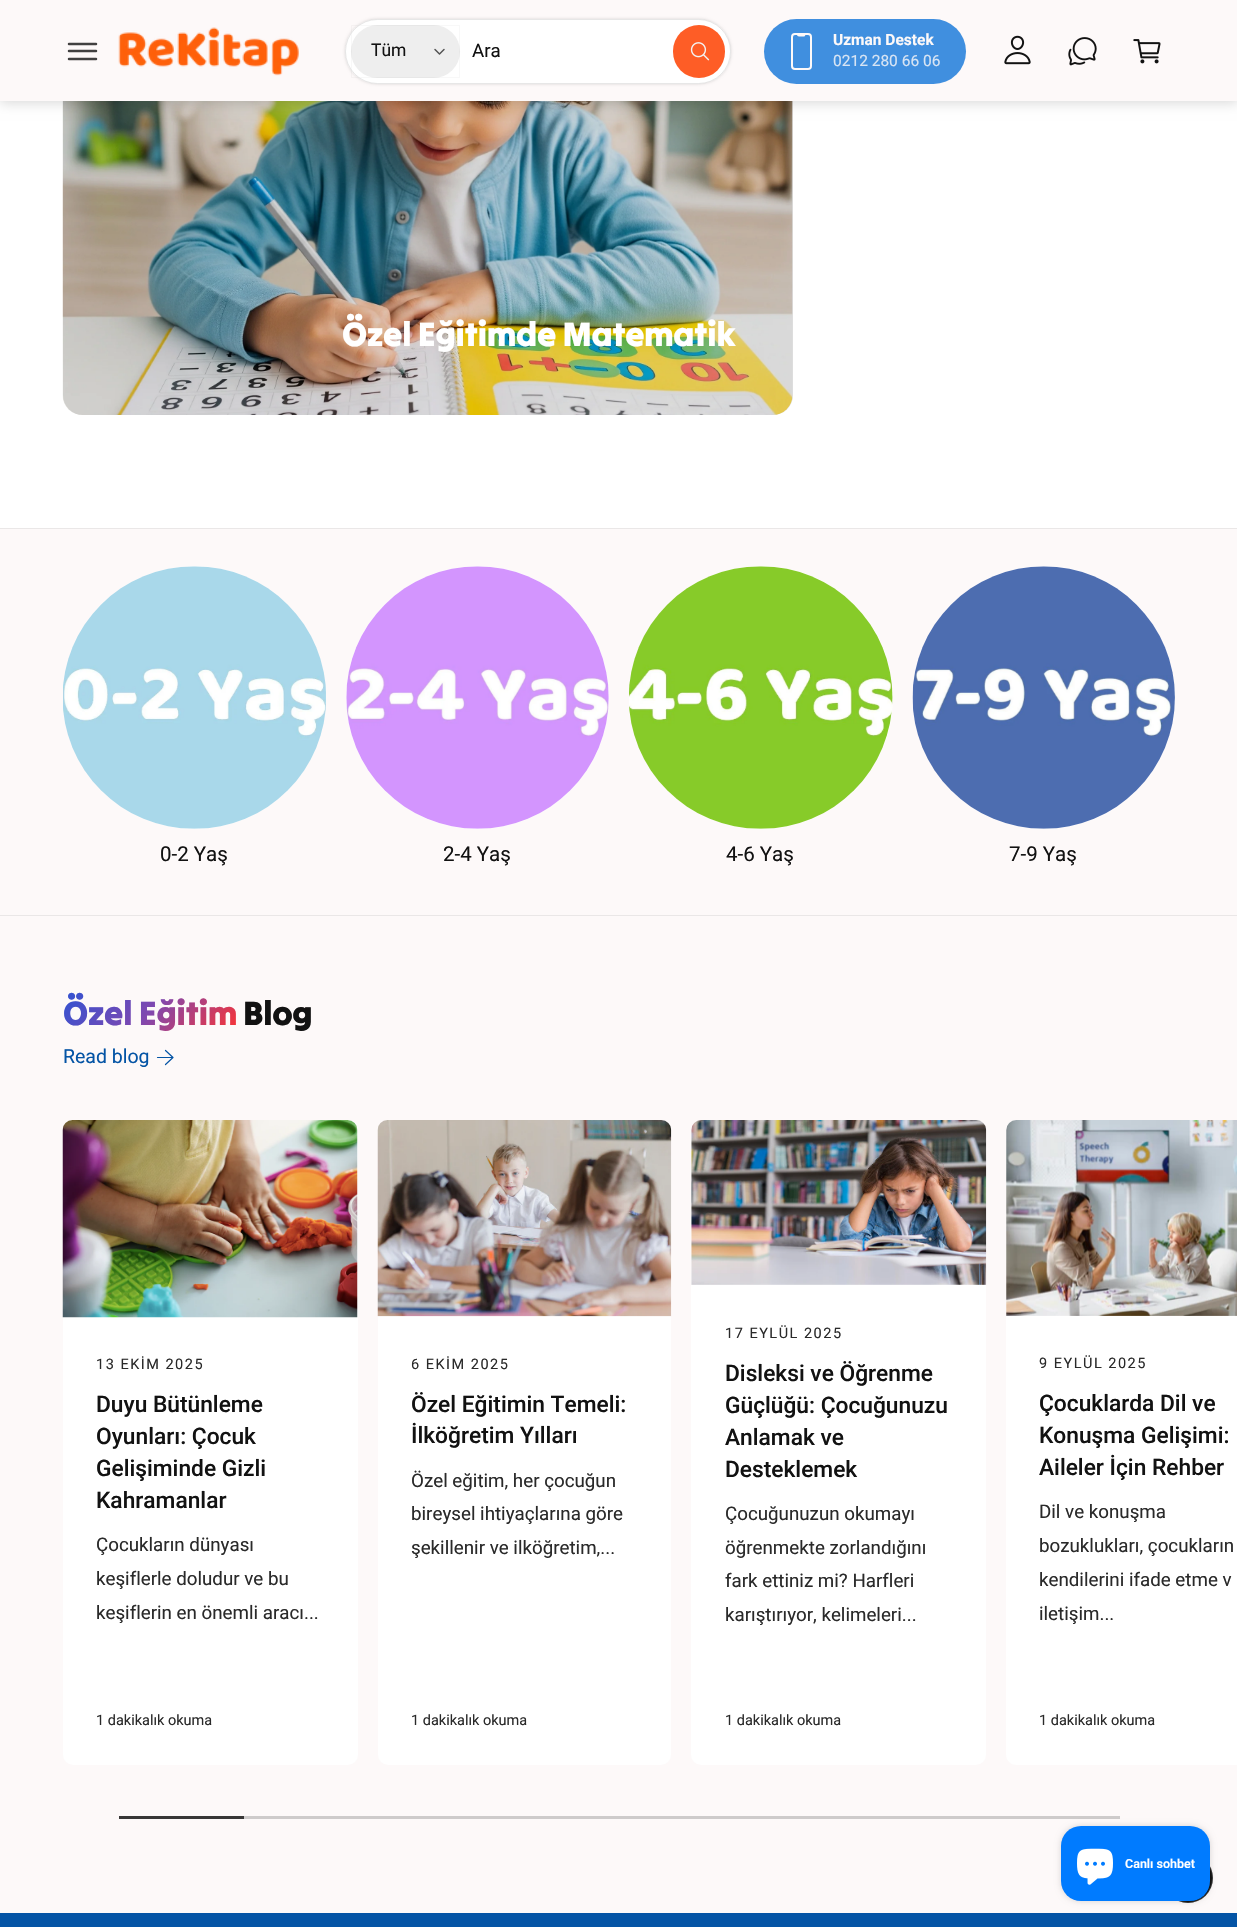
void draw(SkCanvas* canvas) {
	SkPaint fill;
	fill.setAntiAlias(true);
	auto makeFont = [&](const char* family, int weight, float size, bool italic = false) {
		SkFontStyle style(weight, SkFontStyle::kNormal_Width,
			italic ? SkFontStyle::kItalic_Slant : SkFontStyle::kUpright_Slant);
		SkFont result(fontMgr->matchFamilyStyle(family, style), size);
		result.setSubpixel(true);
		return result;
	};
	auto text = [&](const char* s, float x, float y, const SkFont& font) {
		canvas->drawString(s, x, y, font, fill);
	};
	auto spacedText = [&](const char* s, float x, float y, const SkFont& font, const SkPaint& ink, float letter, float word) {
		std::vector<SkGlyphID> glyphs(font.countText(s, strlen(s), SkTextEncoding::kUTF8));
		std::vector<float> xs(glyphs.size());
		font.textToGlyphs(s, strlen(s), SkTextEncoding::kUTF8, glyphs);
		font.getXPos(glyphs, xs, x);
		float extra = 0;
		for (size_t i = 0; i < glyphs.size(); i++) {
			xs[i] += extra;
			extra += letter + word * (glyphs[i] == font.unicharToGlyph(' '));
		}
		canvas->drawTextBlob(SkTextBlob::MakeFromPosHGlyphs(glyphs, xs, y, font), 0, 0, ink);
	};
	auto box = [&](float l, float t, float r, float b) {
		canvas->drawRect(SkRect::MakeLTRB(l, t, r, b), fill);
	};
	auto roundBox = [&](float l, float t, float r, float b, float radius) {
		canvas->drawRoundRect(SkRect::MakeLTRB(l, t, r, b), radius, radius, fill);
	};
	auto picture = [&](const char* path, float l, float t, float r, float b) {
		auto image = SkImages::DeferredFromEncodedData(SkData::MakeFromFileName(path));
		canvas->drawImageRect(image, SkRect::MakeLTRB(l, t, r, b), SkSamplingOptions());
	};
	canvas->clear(0xFFFDF9F9);
	fill.setColor(0xFFFFFFFF);
	box(0, 101, 1237, 528);
	fill.setColor(0xFFF8F8F8);
	roundBox(63, -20, 793, 415, 20);
	picture("image5.png", 62, 101, 793, 415);
	fill.setColor(0x1A000000);
	roundBox(63, -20, 793, 415, 20);
	fill.setColor(0x26000000);
	fill.setMaskFilter(SkMaskFilter::MakeBlur(kNormal_SkBlurStyle, 6));
	canvas->drawRect(SkRect::MakeLTRB(0, 1, 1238, 103), fill);
	fill.setMaskFilter(nullptr);
	fill.setColor(0xFFFDF9F9);
	box(0, 0, 1237, 101);
	fill.setStyle(SkPaint::kStroke_Style);
	fill.setStrokeWidth(2.5f);
	fill.setStrokeCap(SkPaint::kRound_Cap);
	fill.setColor(0xFF414040);
	canvas->drawPath(SkPathBuilder().moveTo(69, 44).lineTo(96, 44).moveTo(69, 51).lineTo(96, 51).moveTo(69, 59).lineTo(96, 59).detach(), fill);
	picture("image0.png", 118, 27, 299, 76);
	fill.setStyle(SkPaint::kFill_Style);
	fill.setColor(0xFFFFFFFF);
	roundBox(345, 19, 731, 84, 32.5f);
	fill.setColor(0xFFEEEEEE);
	roundBox(351, 25, 460, 78, 26.5f);
	fill.setStyle(SkPaint::kStroke_Style);
	fill.setStrokeWidth(1);
	fill.setStrokeCap(SkPaint::kButt_Cap);
	fill.setColor(0x08121212);
	canvas->drawRect(SkRect::MakeLTRB(351.5f, 25.5f, 459.5f, 77.5f), fill);
	fill.setStrokeWidth(1.5f);
	fill.setStrokeCap(SkPaint::kRound_Cap);
	fill.setStrokeJoin(SkPaint::kRound_Join);
	fill.setColor(0xFF545454);
	canvas->drawPath(SkPathBuilder().moveTo(435, 49.5f).lineTo(439.5f, 54).lineTo(444, 49.5f).detach(), fill);
	fill.setStyle(SkPaint::kFill_Style);
	fill.setColor(0xFFFE5D26);
	roundBox(673, 25, 725, 78, 26);
	picture("image1.png", 690, 42, 710, 61);
	canvas->save();
	canvas->clipPath(SkPathBuilder(SkPathFillType::kEvenOdd).moveTo(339, 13).lineTo(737, 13).lineTo(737, 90).lineTo(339, 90).close().moveTo(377.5f, 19).lineTo(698.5f, 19).cubicTo(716.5f, 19, 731, 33.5f, 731, 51.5f).cubicTo(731, 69.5f, 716.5f, 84, 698.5f, 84).lineTo(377.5f, 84).cubicTo(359.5f, 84, 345, 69.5f, 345, 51.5f).cubicTo(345, 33.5f, 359.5f, 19, 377.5f, 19).close().detach(), true);
	fill.setColor(0x26000000);
	fill.setMaskFilter(SkMaskFilter::MakeBlur(kNormal_SkBlurStyle, 1.5f));
	canvas->drawRoundRect(SkRect::MakeLTRB(345, 19, 731, 84), 32.5f, 32.5f, fill);
	fill.setMaskFilter(nullptr);
	canvas->restore();
	fill.setStyle(SkPaint::kStroke_Style);
	fill.setStrokeWidth(1);
	fill.setStrokeCap(SkPaint::kButt_Cap);
	fill.setStrokeJoin(SkPaint::kMiter_Join);
	fill.setColor(0x1A121212);
	canvas->drawRoundRect(SkRect::MakeLTRB(345.5f, 19.5f, 730.5f, 83.5f), 32, 32, fill);
	fill.setStyle(SkPaint::kFill_Style);
	{
		const SkColor colors[] = {0xFF408FDF, 0xFF0454A5};
		const float stops[] = {0.07f, 0.94f};
		const SkPoint ends[] = {{636, -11}, {602, 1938}};
		fill.setShader(SkGradientShader::MakeLinear(ends, colors, stops, 2, SkTileMode::kClamp));
		fill.setAlpha(255);
	}
	roundBox(764, 19, 966, 84, 32.5f);
	fill.setStyle(SkPaint::kStroke_Style);
	fill.setStrokeWidth(2);
	fill.setShader(nullptr);
	fill.setColor(0xFFFDF9F9);
	canvas->drawRoundRect(SkRect::MakeLTRB(792, 34, 811, 69), 3, 3, fill);
	canvas->save();
	canvas->clipRect(SkRect::MakeLTRB(783, 33, 820, 70));
	fill.setStrokeWidth(1.8f);
	fill.setStrokeCap(SkPaint::kRound_Cap);
	fill.setStrokeJoin(SkPaint::kRound_Join);
	canvas->drawPath(SkPathBuilder().moveTo(795.5f, 33.5f).cubicTo(799.5f, 33.5f, 796.5f, 35.5f, 799, 35.5f).lineTo(804, 35.5f).cubicTo(804.5f, 35, 804.5f, 34.5f, 805, 34).cubicTo(805, 33.5f, 806.5f, 33.5f, 807, 33.5f).detach(), fill);
	canvas->restore();
	picture("image2.png", 1004, 35, 1031, 65);
	picture("image3.png", 1068, 37, 1097, 66);
	picture("image4.png", 1133, 39, 1161, 64);
	fill.setStyle(SkPaint::kFill_Style);
	fill.setColor(0xFFEAE7E7);
	box(0, 528, 1237, 529);
	fill.setColor(0xFFFFFFFF);
	canvas->drawCircle(194.5f, 697.5f, 131.5f, fill);
	picture("image6.png", 63, 566, 326, 829);
	canvas->drawCircle(477.5f, 697.5f, 131.5f, fill);
	picture("image7.png", 346, 566, 609, 829);
	roundBox(629, 566, 893, 829, 131.5f);
	picture("image8.png", 629, 566, 893, 829);
	roundBox(913, 566, 1175, 829, 131);
	picture("image9.png", 912, 566, 1175, 829);
	fill.setColor(0xFFEAE7E7);
	box(0, 915, 1237, 916);
	fill.setStyle(SkPaint::kStroke_Style);
	fill.setStrokeWidth(1.2f);
	fill.setColor(0xFF0454A5);
	canvas->drawPath(SkPathBuilder().moveTo(165.5f, 1050.5f).lineTo(173, 1057.5f).lineTo(165.5f, 1064.5f).moveTo(172, 1057.5f).lineTo(157.5f, 1057.5f).detach(), fill);
	fill.setStyle(SkPaint::kFill_Style);
	fill.setColor(0xFFFFFFFF);
	roundBox(63, 1120, 358, 1765, 10);
	picture("image10.png", 62, 1120, 358, 1318);
	roundBox(378, 1120, 671, 1765, 10);
	picture("image11.png", 377, 1120, 672, 1317);
	roundBox(691, 1120, 986, 1765, 10);
	picture("image12.png", 691, 1120, 987, 1285);
	canvas->drawPath(SkPathBuilder().moveTo(1016, 1120).lineTo(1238, 1120).lineTo(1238, 1765).lineTo(1016, 1765).cubicTo(1010.5f, 1765, 1006, 1760.5f, 1006, 1755).lineTo(1006, 1130).cubicTo(1006, 1124.5f, 1010.5f, 1120, 1016, 1120).close().detach(), fill);
	picture("image13.png", 1006, 1120, 1237, 1316);
	fill.setColor(0xFFCECBCB);
	box(244, 1816, 1120, 1819);
	fill.setColor(0xFF383737);
	box(119, 1816, 244, 1819);
	fill.setColor(0xFF0454A5);
	box(0, 1913, 1237, 1927);
	fill.setColor(0xFF121212);
	canvas->drawCircle(1188, 1878, 25, fill);
	fill.setStyle(SkPaint::kStroke_Style);
	fill.setStrokeWidth(1);
	fill.setStrokeCap(SkPaint::kButt_Cap);
	fill.setStrokeJoin(SkPaint::kMiter_Join);
	fill.setColor(0x26FFFFFF);
	canvas->drawCircle(1188, 1878, 24.5f, fill);
	fill.setStyle(SkPaint::kFill_Style);
	fill.setColor(0x26000000);
	fill.setMaskFilter(SkMaskFilter::MakeBlur(kNormal_SkBlurStyle, 3));
	canvas->drawRoundRect(SkRect::MakeLTRB(1061, 1826, 1210, 1901), 20, 20, fill);
	fill.setMaskFilter(nullptr);
	fill.setColor(0xFF007BFF);
	roundBox(1061, 1826, 1210, 1901, 20);
	picture("image14.png", 1077, 1848, 1113, 1885);
	auto font1 = makeFont("Roboto", 400, 17.5f);
	fill.setColor(0xFF121212);
	text("Tüm", 371, 56, font1);
	auto font2 = makeFont("Roboto", 400, 18.75f);
	text("Ara", 472, 57, font2);
	auto font3 = makeFont("Roboto", 700, 15.5f);
	fill.setColor(0xFFFDF9F9);
	text("Uzman Destek", 833, 45, font3);
	auto font4 = makeFont("Roboto", 400, 15.5f);
	fill.setColor(0xFFD7E4F4);
	text("0212 280 66 06", 833, 66, font4);
	auto font5 = makeFont("Tilt Warp", 400, 34.25f);
	fill.setColor(0xFFFFFFFF);
	spacedText("Özel Eğitimde Matematik", 342, 346, font5, fill, -0.5f, 0);
	auto font6 = makeFont("Roboto", 400, 20.5f);
	fill.setColor(0xFF121212);
	text("0-2 Yaş", 160, 861, font6);
	text("2-4 Yaş", 443, 861, font6);
	text("4-6 Yaş", 726, 861, font6);
	text("7-9 Yaş", 1009, 861, font6);
	{
		const SkColor colors[] = {0xFFFB3333, 0xFF7F48B0, 0xFF3053D3};
		const float stops[] = {0, 0.5f, 1};
		const SkPoint ends[] = {{209, 1064}, {89, 960}};
		fill.setShader(SkGradientShader::MakeLinear(ends, colors, stops, 3, SkTileMode::kClamp));
		fill.setAlpha(255);
	}
	spacedText("Özel Eğitim", 63, 1025, font5, fill, -0.5f, 0);
	fill.setShader(nullptr);
	fill.setColor(0xFF121212);
	spacedText("Blog", 243, 1025, font5, fill, -0.5f, 0);
	auto font7 = makeFont("Roboto", 400, 19.5f);
	fill.setColor(0xFF0454A5);
	text("Read blog", 63, 1063, font7);
	auto font8 = makeFont("Roboto", 400, 14.5f);
	fill.setColor(0xFF2A2A2A);
	spacedText("13 EKİM 2025", 96, 1369, font8, fill, 1.5f, 0);
	auto font9 = makeFont("Roboto", 500, 22.75f);
	fill.setColor(0xFF121212);
	text("Duyu Bütünleme", 96, 1412, font9);
	text("Oyunları: Çocuk", 96, 1444, font9);
	text("Gelişiminde Gizli", 96, 1476, font9);
	text("Kahramanlar", 96, 1508, font9);
	fill.setColor(0xFF2A2A2A);
	text("Çocukların dünyası", 96, 1551, font2);
	text("keşiflerle doludur ve bu", 96, 1585, font2);
	text("keşiflerin en önemli aracı...", 96, 1619, font2);
	text("1 dakikalık okuma", 96, 1725, font8);
	spacedText("6 EKİM 2025", 411, 1369, font8, fill, 1.5f, 0);
	fill.setColor(0xFF121212);
	text("Özel Eğitimin Temeli:", 411, 1412, font9);
	text("İlköğretim Yılları", 411, 1443, font9);
	fill.setColor(0xFF2A2A2A);
	text("Özel eğitim, her çocuğun", 411, 1487, font2);
	text("bireysel ihtiyaçlarına göre", 411, 1520, font2);
	text("şekillenir ve ilköğretim,...", 411, 1554, font2);
	text("1 dakikalık okuma", 411, 1725, font8);
	spacedText("17 EYLÜL 2025", 725, 1338, font8, fill, 1.5f, 0);
	fill.setColor(0xFF121212);
	text("Disleksi ve Öğrenme", 725, 1381, font9);
	text("Güçlüğü: Çocuğunuzu", 725, 1413, font9);
	text("Anlamak ve", 725, 1445, font9);
	text("Desteklemek", 725, 1477, font9);
	fill.setColor(0xFF2A2A2A);
	text("Çocuğunuzun okumayı", 725, 1520, font2);
	text("öğrenmekte zorlandığını", 725, 1554, font2);
	text("fark ettiniz mi? Harfleri", 725, 1587, font2);
	text("karıştırıyor, kelimeleri...", 725, 1621, font2);
	text("1 dakikalık okuma", 725, 1725, font8);
	spacedText("9 EYLÜL 2025", 1039, 1368, font8, fill, 1.5f, 0);
	fill.setColor(0xFF121212);
	text("Çocuklarda Dil ve", 1039, 1411, font9);
	text("Konuşma Gelişimi:", 1039, 1443, font9);
	text("Aileler İçin Rehber", 1039, 1475, font9);
	fill.setColor(0xFF2A2A2A);
	text("Dil ve konuşma", 1039, 1518, font2);
	text("bozuklukları, çocukların", 1039, 1552, font2);
	text("kendilerini ifade etme v", 1039, 1586, font2);
	text("iletişim...", 1039, 1620, font2);
	text("1 dakikalık okuma", 1039, 1725, font8);
	auto font10 = makeFont("Roboto", 600, 12.5f);
	fill.setColor(0xFFFFFFFF);
	text("Canlı sohbet", 1125, 1868, font10);
}
